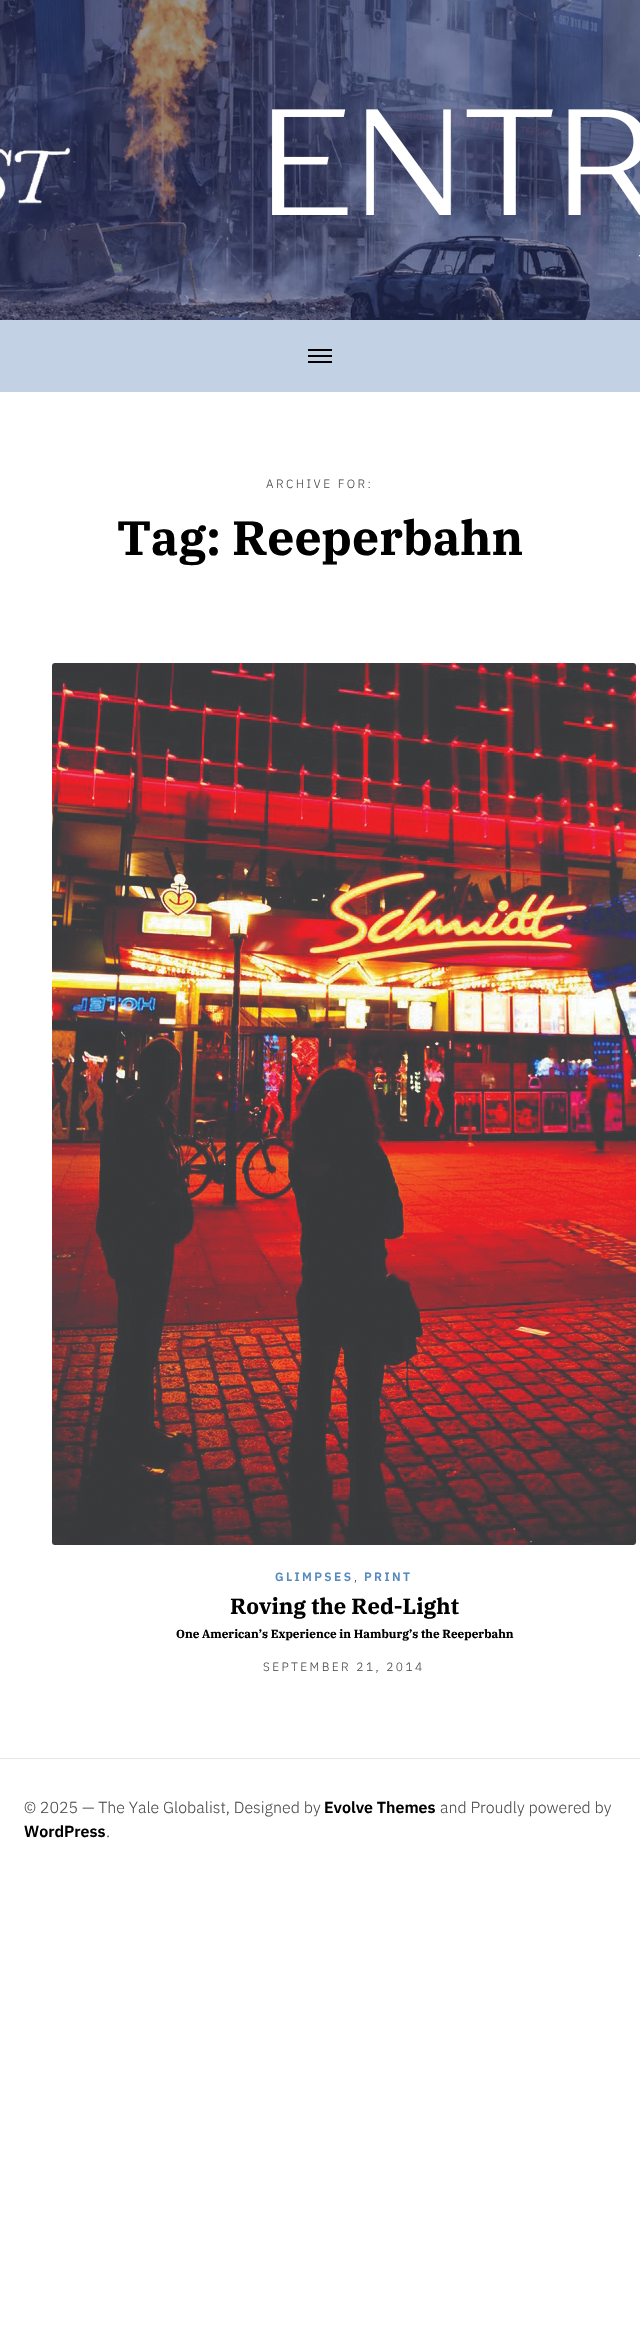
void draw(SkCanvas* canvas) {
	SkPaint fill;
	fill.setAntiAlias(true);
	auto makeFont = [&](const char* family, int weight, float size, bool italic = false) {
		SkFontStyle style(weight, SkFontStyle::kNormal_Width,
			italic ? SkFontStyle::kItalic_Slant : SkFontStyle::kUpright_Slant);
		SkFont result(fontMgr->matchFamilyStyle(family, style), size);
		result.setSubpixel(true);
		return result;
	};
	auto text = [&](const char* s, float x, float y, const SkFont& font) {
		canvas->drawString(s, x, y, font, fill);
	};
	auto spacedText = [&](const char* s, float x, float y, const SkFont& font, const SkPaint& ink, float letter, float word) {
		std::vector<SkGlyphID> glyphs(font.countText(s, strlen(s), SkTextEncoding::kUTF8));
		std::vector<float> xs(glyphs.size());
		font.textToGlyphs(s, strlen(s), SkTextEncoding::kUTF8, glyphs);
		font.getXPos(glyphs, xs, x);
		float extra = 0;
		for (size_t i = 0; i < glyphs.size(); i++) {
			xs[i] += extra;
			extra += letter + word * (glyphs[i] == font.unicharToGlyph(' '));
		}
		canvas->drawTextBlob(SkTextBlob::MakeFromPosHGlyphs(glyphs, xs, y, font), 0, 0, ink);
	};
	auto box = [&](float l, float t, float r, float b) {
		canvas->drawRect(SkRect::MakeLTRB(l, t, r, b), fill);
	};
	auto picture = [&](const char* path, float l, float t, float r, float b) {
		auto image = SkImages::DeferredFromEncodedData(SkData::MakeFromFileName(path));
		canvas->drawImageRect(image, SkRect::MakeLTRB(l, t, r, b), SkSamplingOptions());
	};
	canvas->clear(0xFFFFFFFF);
	picture("image0.png", 0, 0, 640, 320);
	fill.setColor(0xFFC2D2E4);
	box(0, 320, 640, 392);
	fill.setColor(0xFF000000);
	box(308, 355, 332, 357);
	box(308, 349, 332, 351);
	box(308, 361, 332, 363);
	picture("image1.png", 52, 663, 636, 1545);
	fill.setColor(0xFFE6E6E6);
	box(0, 1758, 640, 1759);
	auto font1 = makeFont("IBM Plex Sans", 300, 12);
	fill.setColor(0xFF4D4D4D);
	spacedText("ARCHIVE FOR:", 266, 488, font1, fill, 2.4f, 0);
	auto font2 = makeFont("IBM Plex Serif", 700, 48);
	fill.setColor(0xFF000000);
	text("Tag: Reeperbahn", 117, 555, font2);
	auto font3 = makeFont("IBM Plex Sans", 600, 12);
	fill.setColor(0xFF568ABF);
	spacedText("GLIMPSES", 275, 1581, font3, fill, 2.4f, 0);
	fill.setColor(0xFF4D4D4D);
	spacedText(",", 354, 1581, font1, fill, 2.4f, 0);
	fill.setColor(0xFF568ABF);
	spacedText("PRINT", 364, 1581, font3, fill, 2.4f, 0);
	auto font4 = makeFont("IBM Plex Serif", 700, 22);
	fill.setColor(0xFF000000);
	text("Roving the Red-Light", 230, 1614, font4);
	auto font5 = makeFont("IBM Plex Serif", 700, 11.75f);
	text("One American’s Experience in Hamburg’s the Reeperbahn", 176, 1638, font5);
	fill.setColor(0xFF4D4D4D);
	spacedText("SEPTEMBER 21, 2014", 263, 1671, font1, fill, 2.4f, 0);
	auto font6 = makeFont("IBM Plex Sans", 300, 16);
	text("© 2025 — The Yale Globalist, Designed by", 24, 1813, font6);
	auto font7 = makeFont("IBM Plex Sans", 600, 16);
	fill.setColor(0xFF000000);
	text("Evolve Themes", 324, 1813, font7);
	fill.setColor(0xFF4D4D4D);
	text("and Proudly powered by", 440, 1813, font6);
	fill.setColor(0xFF000000);
	text("WordPress", 24, 1837, font7);
	fill.setColor(0xFF4D4D4D);
	text(".", 106, 1837, font6);
}
